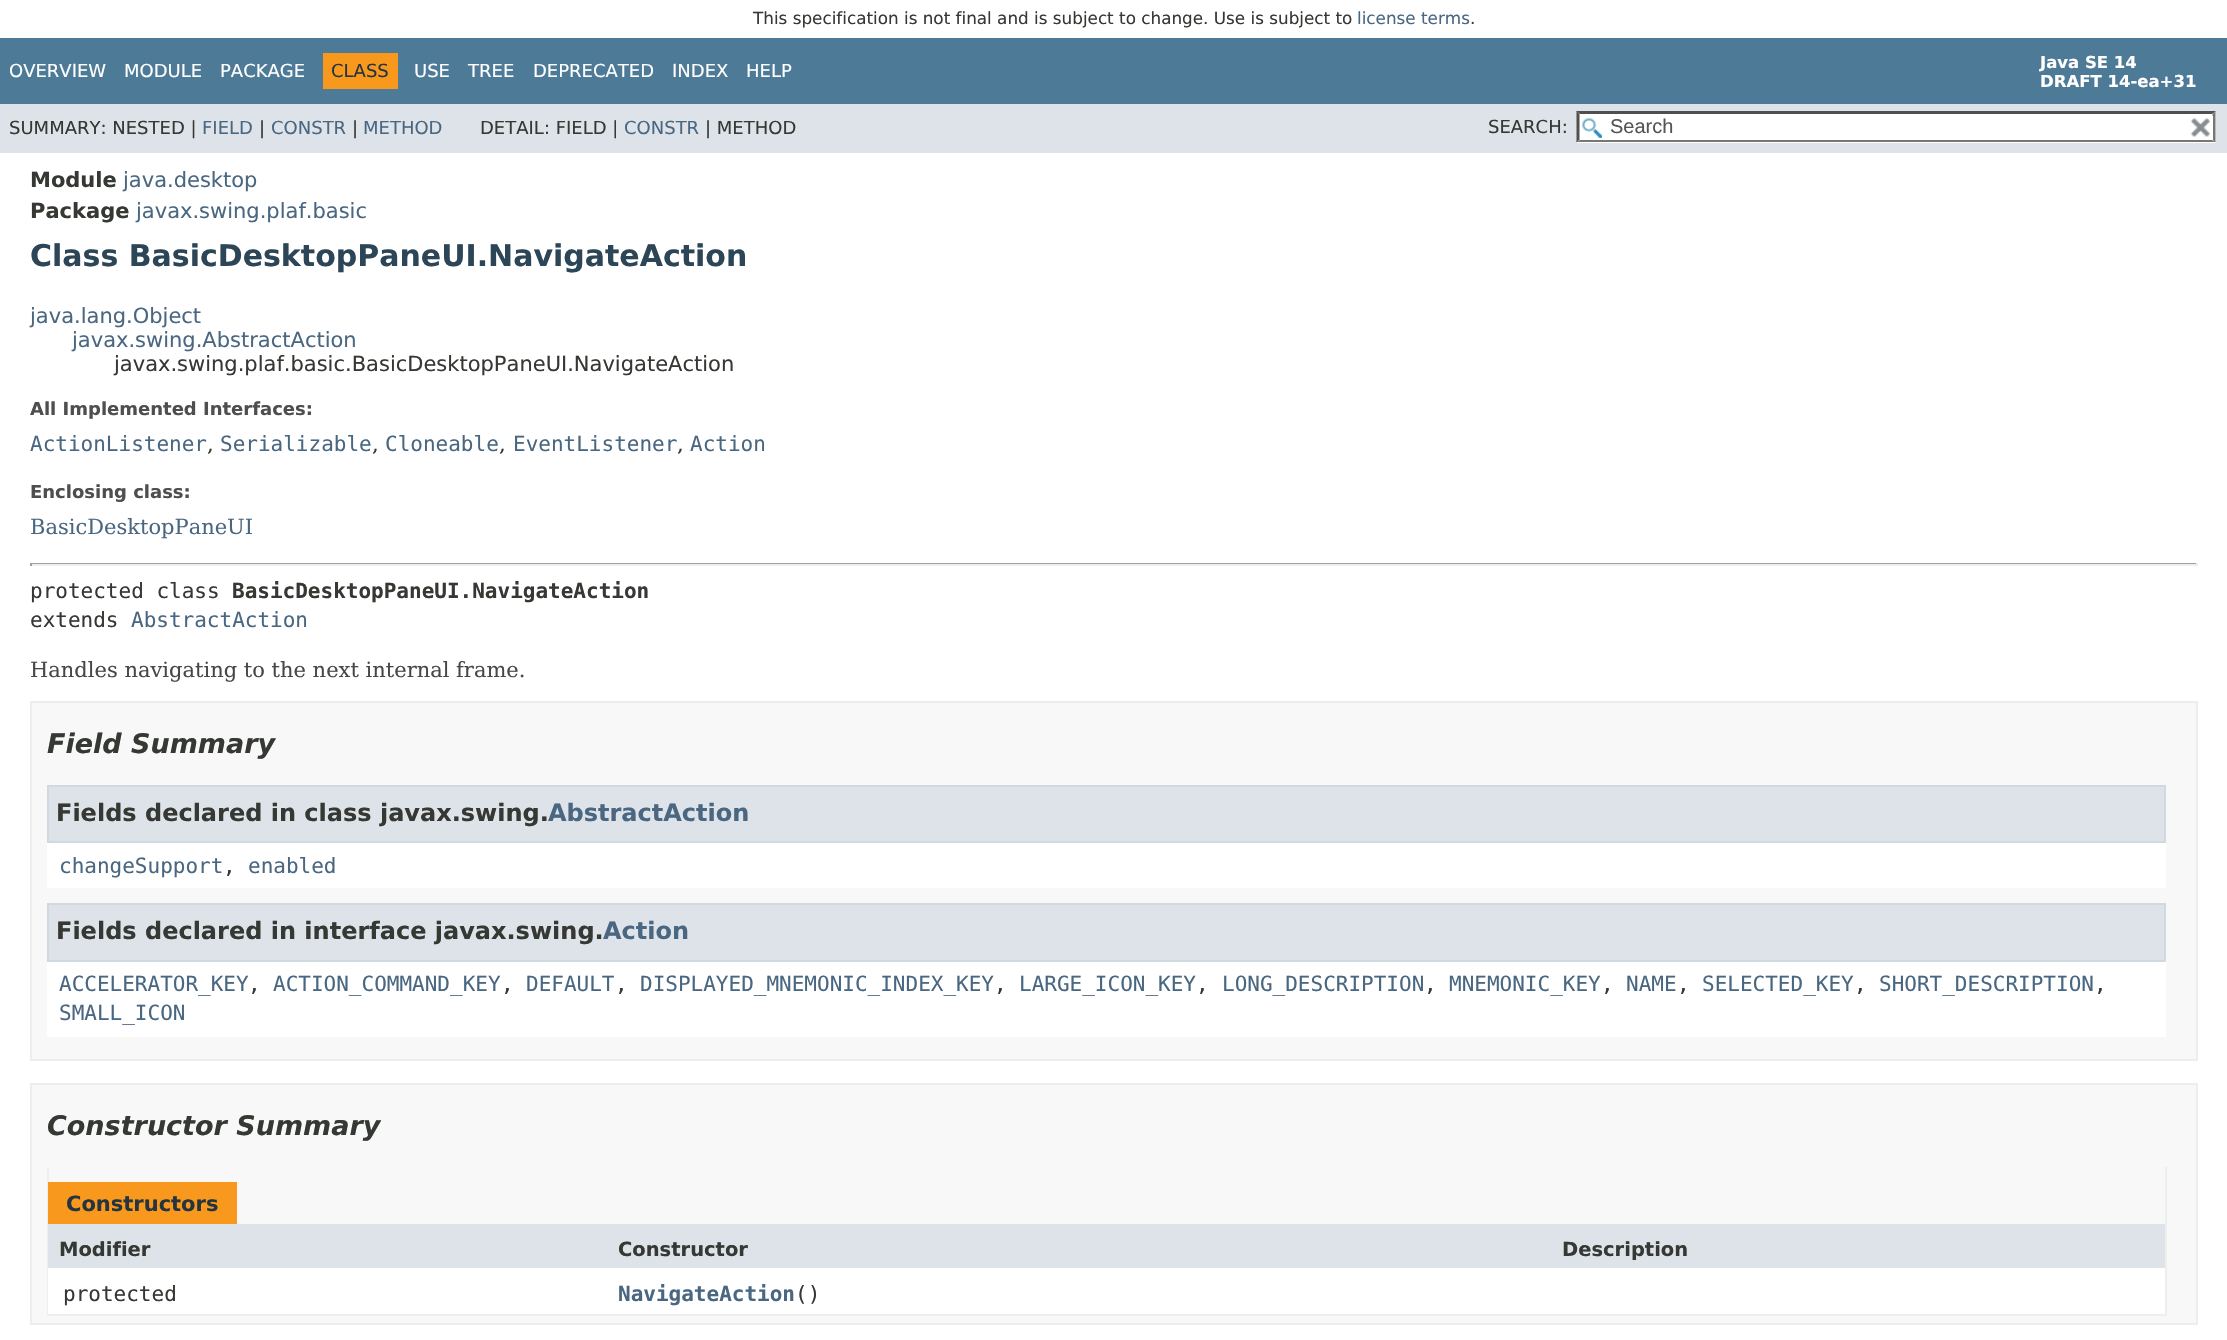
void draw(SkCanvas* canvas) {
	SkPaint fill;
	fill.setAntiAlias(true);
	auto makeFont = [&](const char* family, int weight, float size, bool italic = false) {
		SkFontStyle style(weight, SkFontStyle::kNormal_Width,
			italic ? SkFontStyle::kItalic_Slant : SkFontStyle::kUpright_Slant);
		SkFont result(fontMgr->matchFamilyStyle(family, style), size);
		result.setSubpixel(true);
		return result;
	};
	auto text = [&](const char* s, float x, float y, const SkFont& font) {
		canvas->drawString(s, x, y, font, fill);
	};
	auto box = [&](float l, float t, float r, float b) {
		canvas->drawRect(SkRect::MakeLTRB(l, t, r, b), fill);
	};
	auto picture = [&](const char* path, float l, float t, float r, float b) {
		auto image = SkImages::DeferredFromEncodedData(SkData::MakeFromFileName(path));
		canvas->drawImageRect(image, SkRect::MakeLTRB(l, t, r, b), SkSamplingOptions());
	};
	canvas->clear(0xFFFFFFFF);
	fill.setColor(0xFF4D7A97);
	box(0, 38, 2227, 104);
	fill.setColor(0xFFF8981D);
	box(323, 53, 398, 89);
	fill.setColor(0xFFDEE3E9);
	box(0, 104, 2227, 153);
	fill.setColor(0xFFFFFFFF);
	box(1577, 111, 2216, 143);
	picture("image0.png", 1582, 118, 1602, 138);
	fill.setColor(0xFF4F4F4F);
	canvas->drawPath(SkPathBuilder().moveTo(1576, 111).lineTo(2216, 111).lineTo(2212, 114).lineTo(1580, 114).close().detach(), fill);
	fill.setColor(0xFF767676);
	canvas->drawPath(SkPathBuilder().moveTo(2215.5f, 111).lineTo(2215.5f, 142.5f).lineTo(2212.5f, 139.5f).lineTo(2212.5f, 114).close().detach(), fill);
	canvas->drawPath(SkPathBuilder().moveTo(2216, 142).lineTo(1576, 142).lineTo(1580, 140).lineTo(2212, 140).close().detach(), fill);
	fill.setColor(0xFF4F4F4F);
	canvas->drawPath(SkPathBuilder().moveTo(1576.5f, 142.5f).lineTo(1576.5f, 111).lineTo(1579.5f, 114).lineTo(1579.5f, 139.5f).close().detach(), fill);
	fill.setColor(0xFFFFFFFF);
	box(2212, 116, 2213, 140);
	picture("image1.png", 2190, 118, 2210, 137);
	fill.setColor(0xFF9F9F9F);
	box(30, 563, 2198, 564);
	fill.setColor(0xFFEEEEEE);
	box(2196, 563, 2198, 566);
	box(30, 564, 2198, 566);
	fill.setColor(0xFF9F9F9F);
	box(30, 563, 32, 566);
	fill.setColor(0xFFF8F8F8);
	canvas->drawRect(SkRect::MakeLTRB(31, 702, 2197, 1060), fill);
	fill.setStyle(SkPaint::kStroke_Style);
	fill.setStrokeWidth(2);
	fill.setColor(0xFFEDEDED);
	canvas->drawRect(SkRect::MakeLTRB(31, 702, 2197, 1060), fill);
	fill.setStyle(SkPaint::kFill_Style);
	fill.setColor(0xFFFFFFFF);
	box(47, 843, 2166, 888);
	fill.setColor(0xFFDEE3E9);
	canvas->drawRect(SkRect::MakeLTRB(48, 786, 2165, 842), fill);
	fill.setStyle(SkPaint::kStroke_Style);
	fill.setColor(0xFFD0D9E0);
	canvas->drawRect(SkRect::MakeLTRB(48, 786, 2165, 842), fill);
	fill.setStyle(SkPaint::kFill_Style);
	fill.setColor(0xFFFFFFFF);
	box(47, 962, 2166, 1037);
	fill.setColor(0xFFDEE3E9);
	canvas->drawRect(SkRect::MakeLTRB(48, 904, 2165, 961), fill);
	fill.setStyle(SkPaint::kStroke_Style);
	fill.setColor(0xFFD0D9E0);
	canvas->drawRect(SkRect::MakeLTRB(48, 904, 2165, 961), fill);
	fill.setStyle(SkPaint::kFill_Style);
	fill.setColor(0xFFF8F8F8);
	canvas->drawRect(SkRect::MakeLTRB(31, 1084, 2197, 1324), fill);
	fill.setStyle(SkPaint::kStroke_Style);
	fill.setColor(0xFFEDEDED);
	canvas->drawRect(SkRect::MakeLTRB(31, 1084, 2197, 1324), fill);
	fill.setStyle(SkPaint::kFill_Style);
	fill.setColor(0xFFEEEEEE);
	box(2165, 1167, 2167, 1316);
	box(47, 1314, 2166, 1316);
	box(47, 1167, 49, 1316);
	fill.setColor(0xFFF8981D);
	box(48, 1182, 237, 1224);
	fill.setColor(0xFFDEE3E9);
	box(48, 1224, 2165, 1268);
	fill.setColor(0xFFFFFFFF);
	box(48, 1268, 2165, 1314);
	auto font1 = makeFont("DejaVu Sans", 400, 16.8f);
	fill.setColor(0xFF353833);
	text("This specification is not final and is subject to change. Use is subject to", 753, 24, font1);
	fill.setColor(0xFF4A6782);
	text("license terms", 1357, 24, font1);
	fill.setColor(0xFF353833);
	text(".", 1470, 24, font1);
	auto font2 = makeFont("DejaVu Sans", 400, 18);
	fill.setColor(0xFFFFFFFF);
	text("OVERVIEW", 9, 77, font2);
	text("MODULE", 124, 77, font2);
	text("PACKAGE", 220, 77, font2);
	fill.setColor(0xFF253441);
	text("CLASS", 331, 77, font2);
	fill.setColor(0xFFFFFFFF);
	text("USE", 414, 77, font2);
	text("TREE", 468, 77, font2);
	text("DEPRECATED", 533, 77, font2);
	text("INDEX", 672, 77, font2);
	text("HELP", 746, 77, font2);
	auto font3 = makeFont("DejaVu Sans", 700, 16.5f);
	text("Java SE 14", 2040, 68, font3);
	text("DRAFT 14-ea+31", 2040, 87, font3);
	fill.setColor(0xFF353833);
	text("SUMMARY: NESTED |", 9, 134, font2);
	fill.setColor(0xFF4A6782);
	text("FIELD", 202, 134, font2);
	fill.setColor(0xFF353833);
	text("|", 259, 134, font2);
	fill.setColor(0xFF4A6782);
	text("CONSTR", 271, 134, font2);
	fill.setColor(0xFF353833);
	text("|", 352, 134, font2);
	fill.setColor(0xFF4A6782);
	text("METHOD", 363, 134, font2);
	fill.setColor(0xFF353833);
	text("DETAIL: FIELD |", 480, 134, font2);
	fill.setColor(0xFF4A6782);
	text("CONSTR", 624, 134, font2);
	fill.setColor(0xFF353833);
	text("| METHOD", 705, 134, font2);
	text("SEARCH:", 1488, 133, font2);
	auto font4 = makeFont("Liberation Sans", 400, 20);
	fill.setColor(0xFF545454);
	text("Search", 1610, 133, font4);
	auto font5 = makeFont("DejaVu Sans", 700, 21);
	fill.setColor(0xFF353833);
	text("Module", 30, 187, font5);
	auto font6 = makeFont("DejaVu Sans", 400, 21);
	fill.setColor(0xFF4A6782);
	text("java.desktop", 123, 187, font6);
	fill.setColor(0xFF353833);
	text("Package", 30, 218, font5);
	fill.setColor(0xFF4A6782);
	text("javax.swing.plaf.basic", 136, 218, font6);
	auto font7 = makeFont("DejaVu Sans", 700, 30);
	fill.setColor(0xFF2C4557);
	text("Class BasicDesktopPaneUI.NavigateAction", 30, 266, font7);
	fill.setColor(0xFF4A6782);
	text("java.lang.Object", 30, 323, font6);
	text("javax.swing.AbstractAction", 72, 347, font6);
	fill.setColor(0xFF353833);
	text("javax.swing.plaf.basic.BasicDesktopPaneUI.NavigateAction", 114, 371, font6);
	auto font8 = makeFont("DejaVu Sans", 700, 18);
	fill.setColor(0xFF4E4E4E);
	text("All Implemented Interfaces:", 30, 415, font8);
	auto font9 = makeFont("DejaVu Sans Mono", 400, 21);
	fill.setColor(0xFF4A6782);
	text("ActionListener", 30, 451, font9);
	auto font10 = makeFont("DejaVu Serif", 400, 21);
	fill.setColor(0xFF353833);
	text(",", 207, 451, font10);
	fill.setColor(0xFF4A6782);
	text("Serializable", 220, 451, font9);
	fill.setColor(0xFF353833);
	text(",", 372, 451, font10);
	fill.setColor(0xFF4A6782);
	text("Cloneable", 385, 451, font9);
	fill.setColor(0xFF353833);
	text(",", 499, 451, font10);
	fill.setColor(0xFF4A6782);
	text("EventListener", 513, 451, font9);
	fill.setColor(0xFF353833);
	text(",", 677, 451, font10);
	fill.setColor(0xFF4A6782);
	text("Action", 690, 451, font9);
	fill.setColor(0xFF4E4E4E);
	text("Enclosing class:", 30, 498, font8);
	fill.setColor(0xFF4A6782);
	text("BasicDesktopPaneUI", 30, 534, font10);
	fill.setColor(0xFF353833);
	text("protected class", 30, 598, font9);
	auto font11 = makeFont("DejaVu Sans Mono", 700, 21);
	text("BasicDesktopPaneUI.NavigateAction", 232, 598, font11);
	text("extends", 30, 627, font9);
	fill.setColor(0xFF4A6782);
	text("AbstractAction", 131, 627, font9);
	fill.setColor(0xFF474747);
	text("Handles navigating to the next internal frame.", 30, 677, font10);
	auto font12 = makeFont("DejaVu Sans", 700, 27, true);
	fill.setColor(0xFF353833);
	text("Field Summary", 47, 753, font12);
	auto font13 = makeFont("DejaVu Sans", 700, 24);
	text("Fields declared in class javax.swing.", 56, 821, font13);
	fill.setColor(0xFF4A6782);
	text("AbstractAction", 548, 821, font13);
	text("changeSupport", 59, 873, font9);
	fill.setColor(0xFF353833);
	text(",", 223, 873, font9);
	fill.setColor(0xFF4A6782);
	text("enabled", 248, 873, font9);
	fill.setColor(0xFF353833);
	text("Fields declared in interface javax.swing.", 56, 939, font13);
	fill.setColor(0xFF4A6782);
	text("Action", 603, 939, font13);
	text("ACCELERATOR_KEY", 59, 991, font9);
	fill.setColor(0xFF353833);
	text(",", 248, 991, font9);
	fill.setColor(0xFF4A6782);
	text("ACTION_COMMAND_KEY", 273, 991, font9);
	fill.setColor(0xFF353833);
	text(",", 501, 991, font9);
	fill.setColor(0xFF4A6782);
	text("DEFAULT", 526, 991, font9);
	fill.setColor(0xFF353833);
	text(",", 615, 991, font9);
	fill.setColor(0xFF4A6782);
	text("DISPLAYED_MNEMONIC_INDEX_KEY", 640, 991, font9);
	fill.setColor(0xFF353833);
	text(",", 994, 991, font9);
	fill.setColor(0xFF4A6782);
	text("LARGE_ICON_KEY", 1019, 991, font9);
	fill.setColor(0xFF353833);
	text(",", 1196, 991, font9);
	fill.setColor(0xFF4A6782);
	text("LONG_DESCRIPTION", 1222, 991, font9);
	fill.setColor(0xFF353833);
	text(",", 1424, 991, font9);
	fill.setColor(0xFF4A6782);
	text("MNEMONIC_KEY", 1449, 991, font9);
	fill.setColor(0xFF353833);
	text(",", 1601, 991, font9);
	fill.setColor(0xFF4A6782);
	text("NAME", 1626, 991, font9);
	fill.setColor(0xFF353833);
	text(",", 1677, 991, font9);
	fill.setColor(0xFF4A6782);
	text("SELECTED_KEY", 1702, 991, font9);
	fill.setColor(0xFF353833);
	text(",", 1854, 991, font9);
	fill.setColor(0xFF4A6782);
	text("SHORT_DESCRIPTION", 1879, 991, font9);
	fill.setColor(0xFF353833);
	text(",", 2094, 991, font9);
	fill.setColor(0xFF4A6782);
	text("SMALL_ICON", 59, 1020, font9);
	fill.setColor(0xFF353833);
	text("Constructor Summary", 47, 1135, font12);
	fill.setColor(0xFF253441);
	text("Constructors", 66, 1211, font5);
	auto font14 = makeFont("DejaVu Sans", 700, 19.5f);
	fill.setColor(0xFF353833);
	text("Modifier", 59, 1256, font14);
	text("Constructor", 618, 1256, font14);
	text("Description", 1562, 1256, font14);
	text("protected", 63, 1301, font9);
	fill.setColor(0xFF4A6782);
	text("NavigateAction", 618, 1301, font11);
	fill.setColor(0xFF353833);
	text("()", 795, 1301, font9);
}
